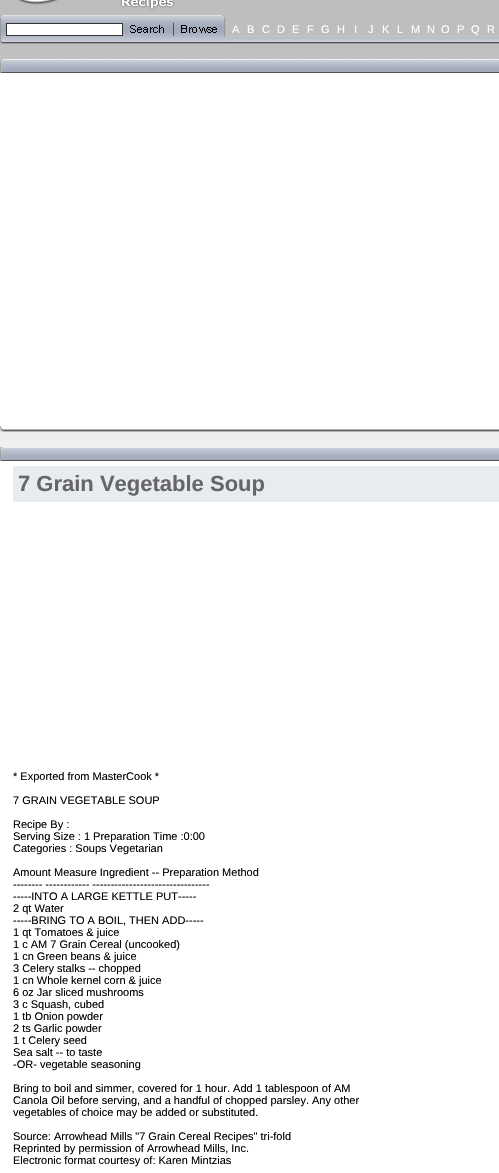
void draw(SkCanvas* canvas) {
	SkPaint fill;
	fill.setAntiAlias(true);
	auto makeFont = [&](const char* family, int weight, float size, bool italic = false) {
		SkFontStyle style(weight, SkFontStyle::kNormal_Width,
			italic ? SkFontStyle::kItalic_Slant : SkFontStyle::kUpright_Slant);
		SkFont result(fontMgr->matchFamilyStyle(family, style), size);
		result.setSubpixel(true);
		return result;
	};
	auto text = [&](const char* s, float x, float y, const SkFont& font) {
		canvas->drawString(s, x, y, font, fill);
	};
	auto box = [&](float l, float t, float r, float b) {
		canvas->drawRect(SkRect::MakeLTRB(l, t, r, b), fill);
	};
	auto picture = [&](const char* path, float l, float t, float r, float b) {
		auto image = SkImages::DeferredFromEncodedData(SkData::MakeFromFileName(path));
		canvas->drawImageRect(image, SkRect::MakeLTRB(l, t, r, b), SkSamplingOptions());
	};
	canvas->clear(0xFFFFFFFF);
	picture("image0.png", 0, 0, 499, 448);
	picture("image1.png", 19, 0, 174, 10);
	picture("image2.png", 0, 15, 6, 44);
	picture("image3.png", 6, 15, 123, 44);
	fill.setColor(0xFFFFFFFF);
	canvas->drawRect(SkRect::MakeLTRB(6.5f, 23.5f, 122.5f, 35.5f), fill);
	fill.setStyle(SkPaint::kStroke_Style);
	fill.setStrokeWidth(1);
	fill.setColor(0xFF333333);
	canvas->drawRect(SkRect::MakeLTRB(6.5f, 23.5f, 122.5f, 35.5f), fill);
	picture("image4.png", 123, 15, 226, 44);
	picture("image5.png", 226, 36, 499, 44);
	picture("image6.png", 0, 59, 13, 73);
	picture("image7.png", 13, 59, 499, 73);
	fill.setStyle(SkPaint::kFill_Style);
	fill.setColor(0xFFFFFFFF);
	box(0, 73, 499, 426);
	picture("image8.png", 0, 426, 13, 432);
	picture("image9.png", 13, 426, 499, 432);
	picture("image6.png", 0, 447, 13, 461);
	picture("image10.png", 13, 448, 499, 461);
	fill.setColor(0xFFE8ECF1);
	box(13, 466, 499, 502);
	auto font1 = makeFont("Liberation Sans", 400, 11);
	fill.setColor(0xFFFFFFFF);
	text("A", 232, 33, font1);
	text("B", 247, 33, font1);
	text("C", 262, 33, font1);
	text("D", 277, 33, font1);
	text("E", 292, 33, font1);
	text("F", 307, 33, font1);
	text("G", 321, 33, font1);
	text("H", 337, 33, font1);
	text("I", 354, 33, font1);
	text("J", 368, 33, font1);
	text("K", 382, 33, font1);
	text("L", 397, 33, font1);
	text("M", 411, 33, font1);
	text("N", 427, 33, font1);
	text("O", 441, 33, font1);
	text("P", 457, 33, font1);
	text("Q", 471, 33, font1);
	text("R", 487, 33, font1);
	auto font2 = makeFont("Liberation Sans", 700, 22);
	fill.setColor(0xFF666666);
	text("7 Grain Vegetable Soup", 18, 491, font2);
	fill.setColor(0xFF000000);
	text("* Exported from MasterCook *", 13, 780, font1);
	text("7 GRAIN VEGETABLE SOUP", 13, 804, font1);
	text("Recipe By :", 13, 828, font1);
	text("Serving Size : 1 Preparation Time :0:00", 13, 840, font1);
	text("Categories : Soups Vegetarian", 13, 852, font1);
	text("Amount Measure Ingredient -- Preparation Method", 13, 876, font1);
	text("-------- ------------ --------------------------------", 13, 888, font1);
	text("-----INTO A LARGE KETTLE PUT-----", 13, 900, font1);
	text("2 qt Water", 13, 912, font1);
	text("-----BRING TO A BOIL, THEN ADD-----", 13, 924, font1);
	text("1 qt Tomatoes & juice", 13, 936, font1);
	text("1 c AM 7 Grain Cereal (uncooked)", 13, 948, font1);
	text("1 cn Green beans & juice", 13, 960, font1);
	text("3 Celery stalks -- chopped", 13, 972, font1);
	text("1 cn Whole kernel corn & juice", 13, 984, font1);
	text("6 oz Jar sliced mushrooms", 13, 996, font1);
	text("3 c Squash, cubed", 13, 1008, font1);
	text("1 tb Onion powder", 13, 1020, font1);
	text("2 ts Garlic powder", 13, 1032, font1);
	text("1 t Celery seed", 13, 1044, font1);
	text("Sea salt -- to taste", 13, 1056, font1);
	text("-OR- vegetable seasoning", 13, 1068, font1);
	text("Bring to boil and simmer, covered for 1 hour. Add 1 tablespoon of AM", 13, 1092, font1);
	text("Canola Oil before serving, and a handful of chopped parsley. Any other", 13, 1104, font1);
	text("vegetables of choice may be added or substituted.", 13, 1116, font1);
	text("Source: Arrowhead Mills \"7 Grain Cereal Recipes\" tri-fold", 13, 1140, font1);
	text("Reprinted by permission of Arrowhead Mills, Inc.", 13, 1152, font1);
	text("Electronic format courtesy of: Karen Mintzias", 13, 1164, font1);
}
